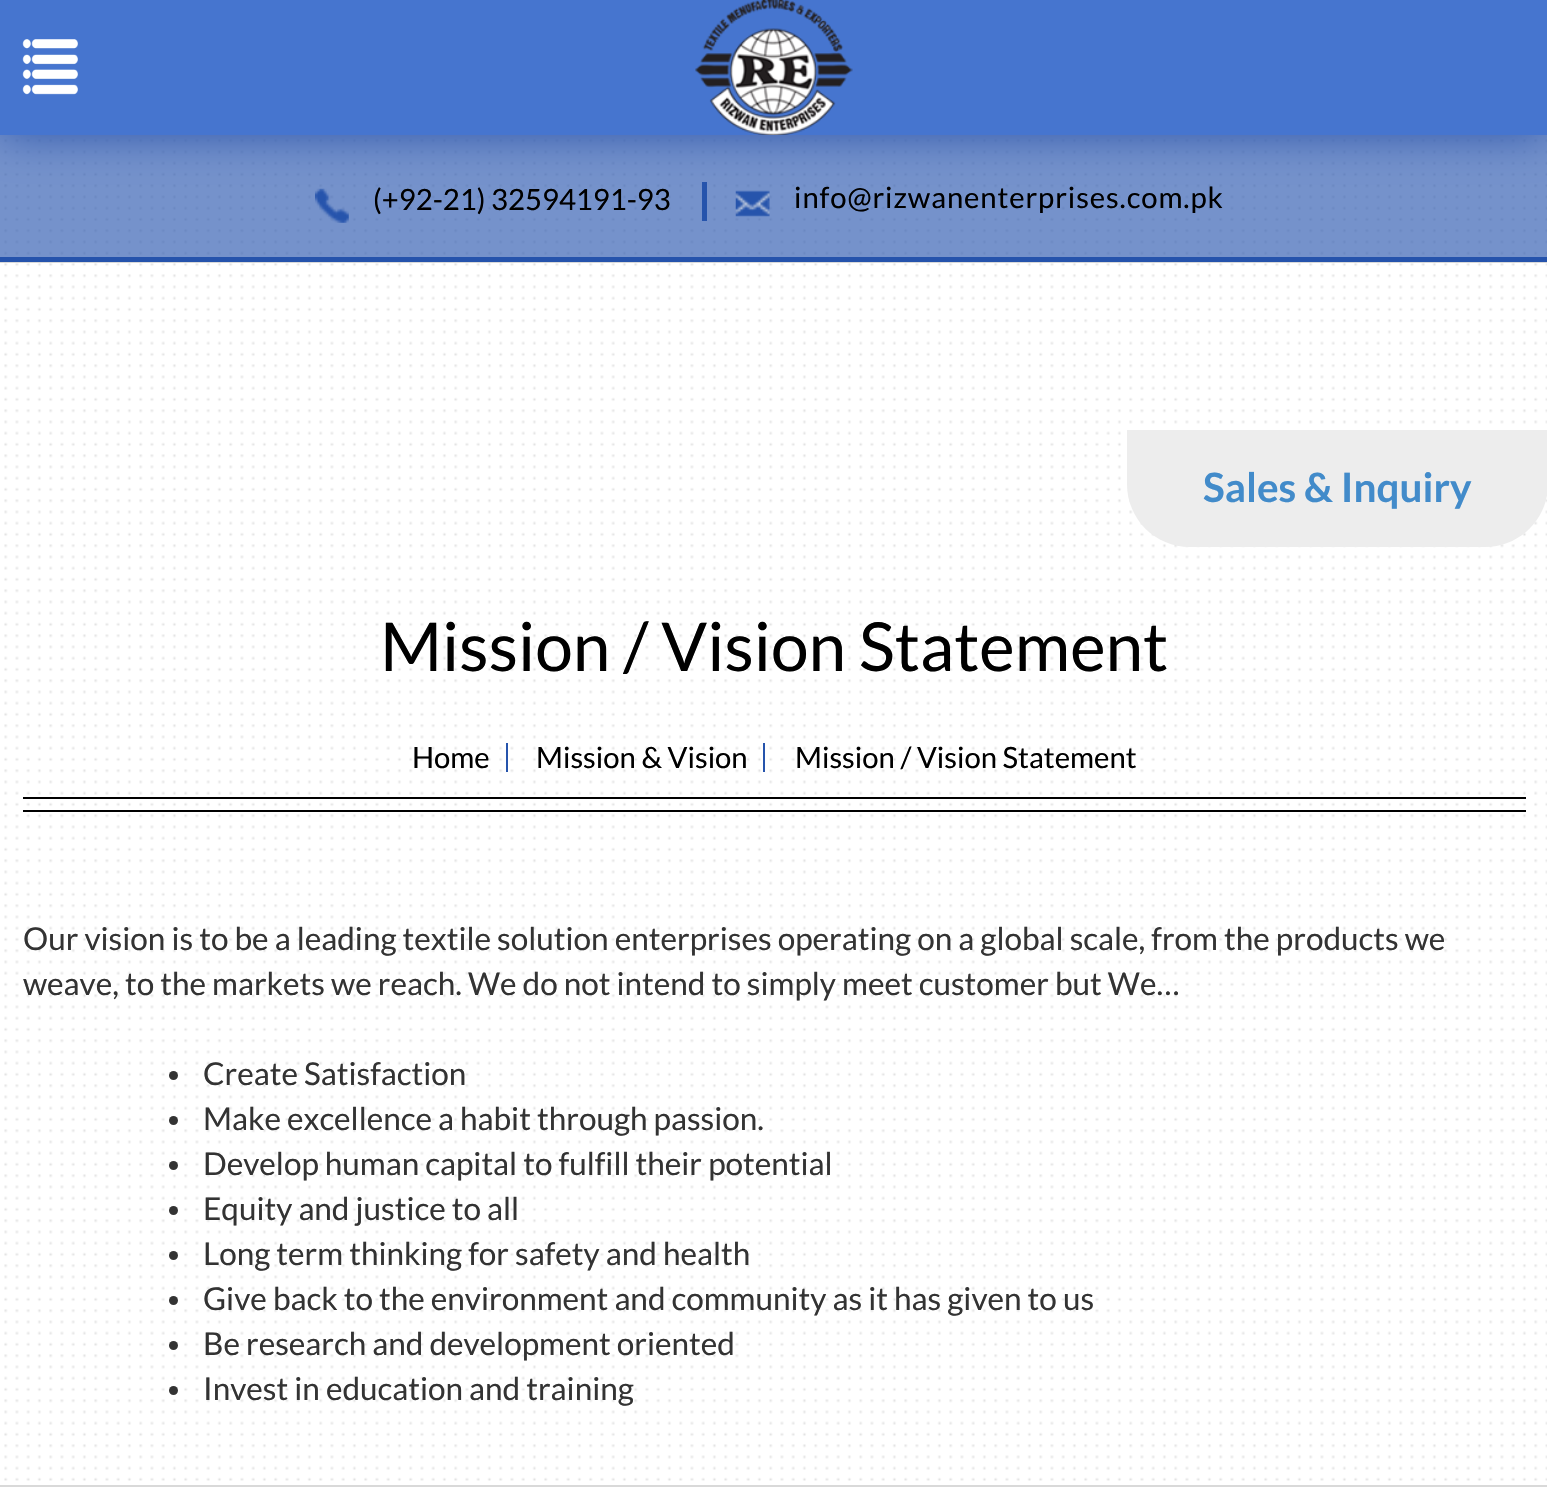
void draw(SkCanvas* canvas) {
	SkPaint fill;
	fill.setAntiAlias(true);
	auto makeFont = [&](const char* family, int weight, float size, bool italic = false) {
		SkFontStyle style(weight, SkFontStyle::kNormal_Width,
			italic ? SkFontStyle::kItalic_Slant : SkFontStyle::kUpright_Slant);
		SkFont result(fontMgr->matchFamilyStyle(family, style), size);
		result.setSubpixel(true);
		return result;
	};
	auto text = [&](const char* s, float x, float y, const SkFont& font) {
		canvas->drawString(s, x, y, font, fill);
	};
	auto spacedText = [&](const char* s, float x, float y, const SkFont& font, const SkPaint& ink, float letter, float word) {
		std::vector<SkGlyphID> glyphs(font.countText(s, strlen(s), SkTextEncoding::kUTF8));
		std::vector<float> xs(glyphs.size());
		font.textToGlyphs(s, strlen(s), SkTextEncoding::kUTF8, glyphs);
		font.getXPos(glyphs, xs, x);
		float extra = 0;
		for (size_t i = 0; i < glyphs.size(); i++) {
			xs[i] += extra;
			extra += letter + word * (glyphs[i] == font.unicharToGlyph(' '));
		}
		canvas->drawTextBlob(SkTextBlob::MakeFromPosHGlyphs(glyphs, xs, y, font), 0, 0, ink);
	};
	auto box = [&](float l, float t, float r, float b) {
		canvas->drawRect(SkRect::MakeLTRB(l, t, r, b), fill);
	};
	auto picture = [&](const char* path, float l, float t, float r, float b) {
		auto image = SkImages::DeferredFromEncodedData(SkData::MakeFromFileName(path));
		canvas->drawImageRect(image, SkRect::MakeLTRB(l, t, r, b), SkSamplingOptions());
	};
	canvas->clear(0xFFFFFFFF);
	picture("image0.png", 4, 139, 1547, 1481);
	fill.setColor(0xFF3F5FAA);
	fill.setMaskFilter(SkMaskFilter::MakeBlur(kNormal_SkBlurStyle, 22.5f));
	canvas->drawRect(SkRect::MakeLTRB(0, 0, 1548, 135), fill);
	fill.setMaskFilter(nullptr);
	fill.setColor(0xFF4675CF);
	box(0, 0, 1547, 135);
	picture("image1.png", 22, 39, 78, 95);
	picture("image2.png", 695, 0, 853, 135);
	fill.setColor(0xA12553AC);
	box(0, 135, 1547, 257);
	fill.setColor(0xFF2553AC);
	box(0, 257, 1547, 262);
	fill.setColor(0xFF2654AC);
	box(702, 182, 707, 221);
	picture("image3.png", 315, 188, 349, 223);
	picture("image4.png", 735, 190, 770, 217);
	fill.setColor(0xFFEDEDED);
	canvas->drawPath(SkPathBuilder().moveTo(1127, 430).lineTo(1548, 430).lineTo(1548, 484).cubicTo(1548, 519, 1520, 547, 1485, 547).lineTo(1190, 547).cubicTo(1155, 547, 1127, 519, 1127, 484).close().detach(), fill);
	fill.setColor(0xFFD9D9D9);
	box(0, 262, 1547, 263);
	fill.setColor(0xFF000000);
	box(23, 797, 1526, 799);
	fill.setColor(0xFF2654AC);
	box(506, 743, 508, 772);
	box(763, 743, 765, 772);
	fill.setColor(0xFF000000);
	box(23, 810, 1526, 812);
	fill.setColor(0xFF333333);
	canvas->drawCircle(173.5f, 1075.5f, 4.5f, fill);
	canvas->drawCircle(173.5f, 1120.5f, 4.5f, fill);
	canvas->drawCircle(173.5f, 1165.5f, 4.5f, fill);
	canvas->drawCircle(173.5f, 1210.5f, 4.5f, fill);
	canvas->drawCircle(173.5f, 1255.5f, 4.5f, fill);
	canvas->drawCircle(173.5f, 1300.5f, 4.5f, fill);
	canvas->drawCircle(173.5f, 1345.5f, 4.5f, fill);
	canvas->drawCircle(173.5f, 1390.5f, 4.5f, fill);
	fill.setColor(0xFFD9D9D9);
	box(0, 1485, 1547, 1487);
	auto font1 = makeFont("Lato", 400, 29.25f);
	fill.setColor(0xFF000000);
	text("(+92-21) 32594191-93", 373, 210, font1);
	spacedText("info@rizwanenterprises.com.pk", 794, 208, font1, fill, 0.9f, 0);
	auto font2 = makeFont("Lato", 700, 40.5f);
	fill.setColor(0xFF428BCA);
	text("Sales & Inquiry", 1203, 502, font2);
	auto font3 = makeFont("Lato", 400, 67.5f);
	fill.setColor(0xFF000000);
	text("Mission / Vision Statement", 380, 671, font3);
	text("Home", 412, 768, font1);
	text("Mission & Vision", 536, 768, font1);
	text("Mission / Vision Statement", 795, 768, font1);
	auto font4 = makeFont("Lato", 400, 31.5f);
	fill.setColor(0xFF333333);
	text("Our vision is to be a leading textile solution enterprises operating on a global scale, from the products we", 23, 950, font4);
	text("weave, to the markets we reach. We do not intend to simply meet customer but We…", 23, 995, font4);
	text("Create Satisfaction", 203, 1085, font4);
	text("Make excellence a habit through passion.", 203, 1130, font4);
	text("Develop human capital to fulfill their potential", 203, 1175, font4);
	text("Equity and justice to all", 203, 1220, font4);
	text("Long term thinking for safety and health", 203, 1265, font4);
	text("Give back to the environment and community as it has given to us", 203, 1310, font4);
	text("Be research and development oriented", 203, 1355, font4);
	text("Invest in education and training", 203, 1400, font4);
}
